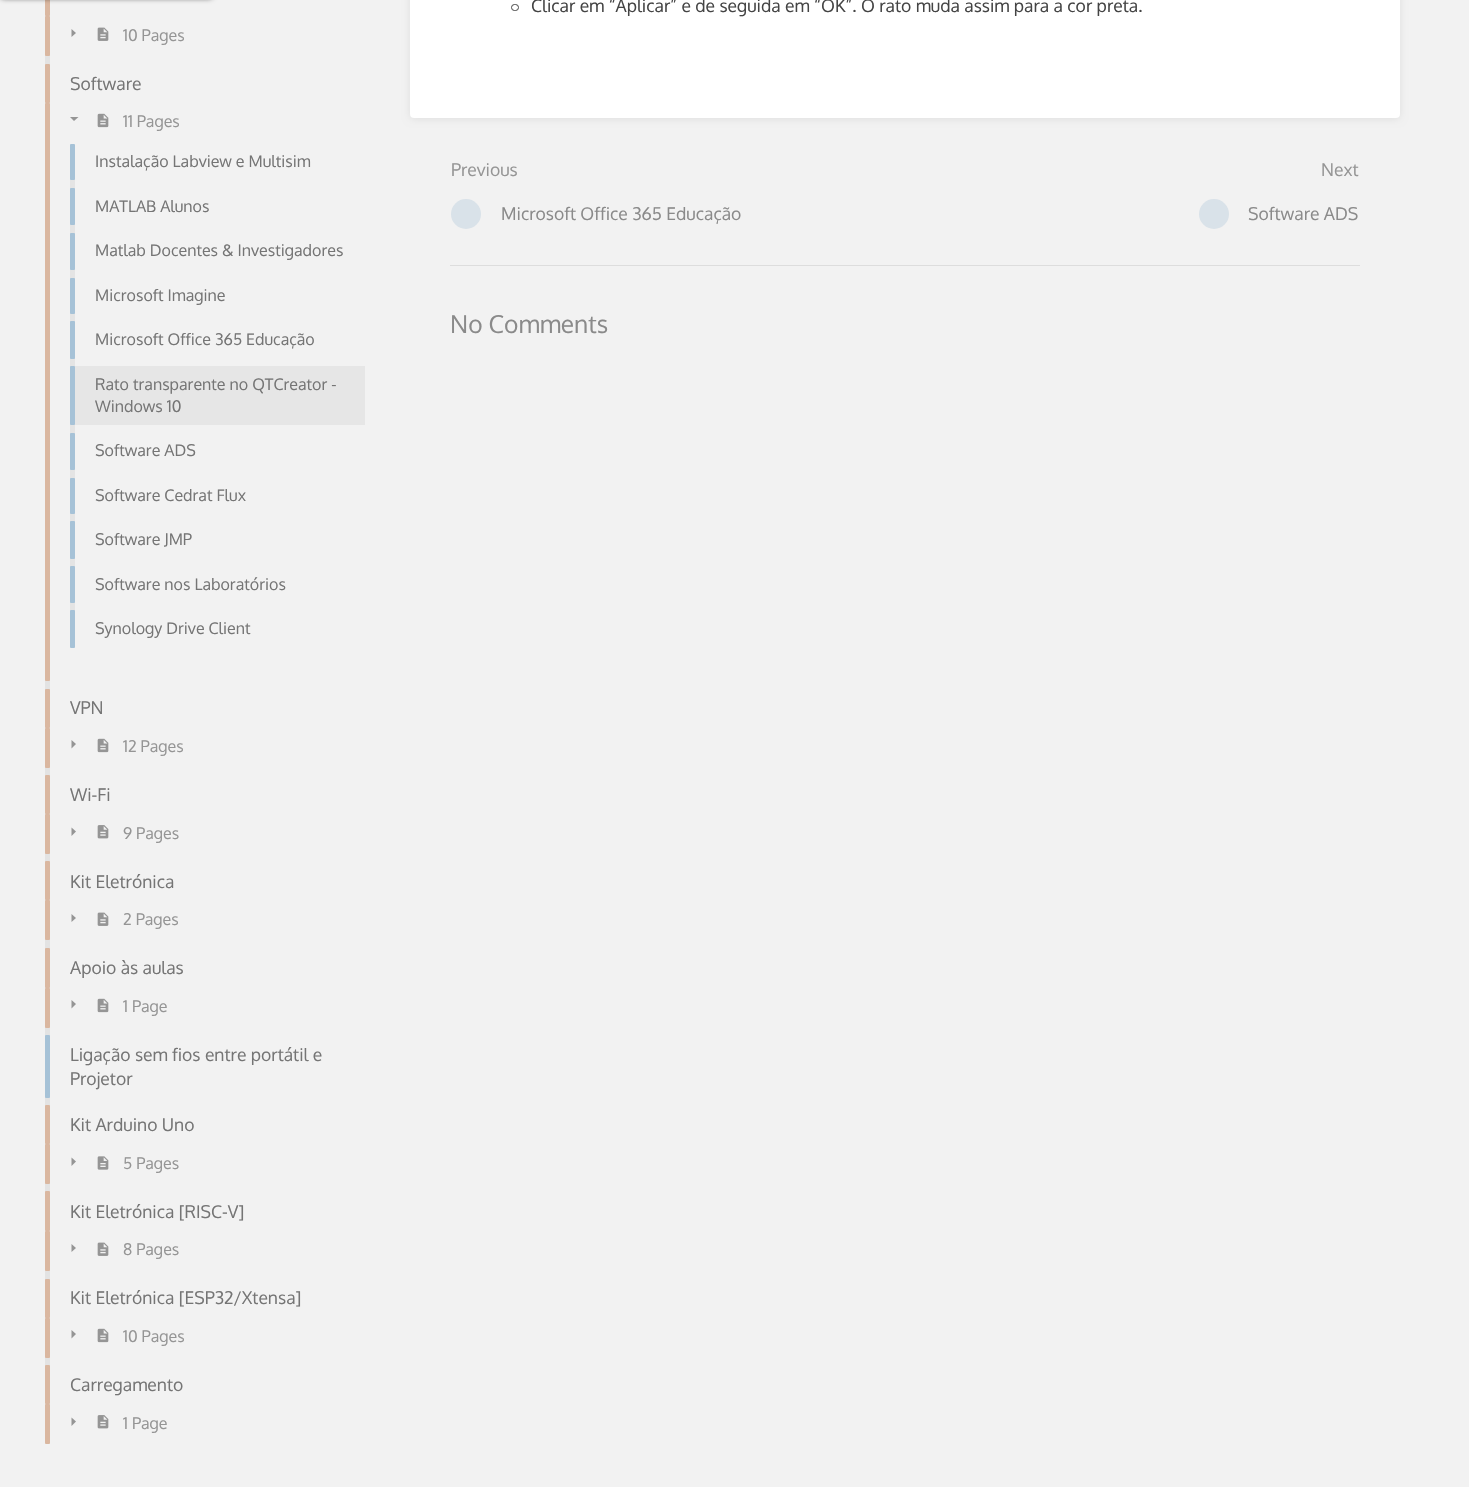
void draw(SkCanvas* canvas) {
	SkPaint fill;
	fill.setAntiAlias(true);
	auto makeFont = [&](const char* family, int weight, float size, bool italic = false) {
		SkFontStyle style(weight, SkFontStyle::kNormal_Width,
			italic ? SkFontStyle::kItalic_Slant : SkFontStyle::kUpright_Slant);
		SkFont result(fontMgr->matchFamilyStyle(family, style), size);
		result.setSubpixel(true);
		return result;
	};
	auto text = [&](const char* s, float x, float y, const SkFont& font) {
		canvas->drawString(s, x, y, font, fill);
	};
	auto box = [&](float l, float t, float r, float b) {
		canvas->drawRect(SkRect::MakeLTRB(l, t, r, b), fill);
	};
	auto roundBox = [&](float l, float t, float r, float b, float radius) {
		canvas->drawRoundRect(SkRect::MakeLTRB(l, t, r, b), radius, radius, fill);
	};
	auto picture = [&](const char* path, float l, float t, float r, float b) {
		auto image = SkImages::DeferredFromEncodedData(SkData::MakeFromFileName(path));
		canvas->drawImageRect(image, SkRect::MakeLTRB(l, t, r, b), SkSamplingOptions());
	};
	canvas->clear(0xFFF2F2F2);
	fill.setColor(0xFFE4E4E4);
	box(70, 179, 75, 611);
	fill.setColor(0xFFE3E3E3);
	box(45, 15, 50, 1405);
	fill.setColor(0xFFDAB7A0);
	roundBox(45, -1, 50, 16, 1);
	fill.setColor(0x80000000);
	fill.setMaskFilter(SkMaskFilter::MakeBlur(kNormal_SkBlurStyle, 2.5f));
	canvas->drawRoundRect(SkRect::MakeLTRB(-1, -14, 214, -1), 6, 6, fill);
	fill.setMaskFilter(nullptr);
	fill.setColor(0xFFDAB7A0);
	roundBox(45, 16, 50, 56, 1);
	fill.setColor(0xFF959595);
	canvas->drawPath(SkPathBuilder().moveTo(71.5f, 37).lineTo(76, 33).lineTo(71.5f, 29).close().detach(), fill);
	picture("image0.png", 97, 27, 109, 41);
	fill.setColor(0xFFDAB7A0);
	roundBox(45, 64, 50, 103, 1);
	roundBox(45, 103, 50, 681, 1);
	fill.setColor(0xFF959595);
	canvas->drawPath(SkPathBuilder().moveTo(70, 117).lineTo(74, 121).lineTo(78.5f, 117).close().detach(), fill);
	picture("image1.png", 97, 113, 109, 128);
	fill.setColor(0xFFA6C2D7);
	roundBox(70, 144, 75, 180, 1);
	roundBox(70, 188, 75, 225, 1);
	roundBox(70, 233, 75, 270, 1);
	roundBox(70, 278, 75, 314, 1);
	roundBox(70, 321, 75, 359, 1);
	fill.setColor(0xFFE6E6E6);
	box(75, 366, 365, 425);
	fill.setColor(0xFFA6C2D7);
	roundBox(70, 366, 75, 425, 1);
	roundBox(70, 433, 75, 470, 1);
	roundBox(70, 478, 75, 514, 1);
	roundBox(70, 521, 75, 559, 1);
	roundBox(70, 566, 75, 603, 1);
	roundBox(70, 610, 75, 648, 1);
	fill.setColor(0xFFDAB7A0);
	roundBox(45, 689, 50, 728, 1);
	roundBox(45, 728, 50, 768, 1);
	fill.setColor(0xFF959595);
	canvas->drawPath(SkPathBuilder().moveTo(71.5f, 748.5f).lineTo(76, 744).lineTo(71.5f, 740).close().detach(), fill);
	picture("image1.png", 97, 738, 109, 753);
	fill.setColor(0xFFDAB7A0);
	roundBox(45, 775, 50, 814, 1);
	roundBox(45, 814, 50, 854, 1);
	fill.setColor(0xFF959595);
	canvas->drawPath(SkPathBuilder().moveTo(71.5f, 836).lineTo(76, 831.5f).lineTo(71.5f, 827.5f).close().detach(), fill);
	picture("image2.png", 97, 825, 109, 839);
	fill.setColor(0xFFDAB7A0);
	roundBox(45, 861, 50, 900, 1);
	roundBox(45, 900, 50, 940, 1);
	fill.setColor(0xFF959595);
	canvas->drawPath(SkPathBuilder().moveTo(71.5f, 922).lineTo(76, 918).lineTo(71.5f, 914).close().detach(), fill);
	picture("image0.png", 97, 912, 109, 926);
	fill.setColor(0xFFDAB7A0);
	roundBox(45, 948, 50, 988, 1);
	roundBox(45, 988, 50, 1028, 1);
	fill.setColor(0xFF959595);
	canvas->drawPath(SkPathBuilder().moveTo(71.5f, 1008.5f).lineTo(76, 1004).lineTo(71.5f, 1000).close().detach(), fill);
	picture("image1.png", 97, 998, 109, 1013);
	fill.setColor(0xFFA6C2D7);
	roundBox(45, 1035, 50, 1098, 1);
	fill.setColor(0xFFDAB7A0);
	roundBox(45, 1105, 50, 1144, 1);
	roundBox(45, 1144, 50, 1184, 1);
	fill.setColor(0xFF959595);
	canvas->drawPath(SkPathBuilder().moveTo(71.5f, 1166).lineTo(76, 1161.5f).lineTo(71.5f, 1157.5f).close().detach(), fill);
	picture("image3.png", 97, 1156, 109, 1170);
	fill.setColor(0xFFDAB7A0);
	roundBox(45, 1191, 50, 1231, 1);
	roundBox(45, 1231, 50, 1271, 1);
	fill.setColor(0xFF959595);
	canvas->drawPath(SkPathBuilder().moveTo(71.5f, 1252).lineTo(76, 1248).lineTo(71.5f, 1244).close().detach(), fill);
	picture("image0.png", 97, 1242, 109, 1256);
	fill.setColor(0xFFDAB7A0);
	roundBox(45, 1279, 50, 1318, 1);
	roundBox(45, 1318, 50, 1358, 1);
	fill.setColor(0xFF959595);
	canvas->drawPath(SkPathBuilder().moveTo(71.5f, 1338.5f).lineTo(76, 1334).lineTo(71.5f, 1330).close().detach(), fill);
	picture("image1.png", 97, 1328, 109, 1343);
	fill.setColor(0xFFDAB7A0);
	roundBox(45, 1365, 50, 1404, 1);
	roundBox(45, 1404, 50, 1444, 1);
	fill.setColor(0xFF959595);
	canvas->drawPath(SkPathBuilder().moveTo(71.5f, 1426).lineTo(76, 1421.5f).lineTo(71.5f, 1417.5f).close().detach(), fill);
	picture("image2.png", 97, 1415, 109, 1429);
	fill.setColor(0x1A000000);
	fill.setMaskFilter(SkMaskFilter::MakeBlur(kNormal_SkBlurStyle, 4));
	canvas->drawRoundRect(SkRect::MakeLTRB(411, -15, 1399, 118), 2.5f, 2.5f, fill);
	fill.setMaskFilter(nullptr);
	fill.setColor(0xFFFFFFFF);
	roundBox(410, -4, 1400, 118, 4);
	fill.setStyle(SkPaint::kStroke_Style);
	fill.setStrokeWidth(1);
	fill.setColor(0xFF444444);
	canvas->drawRoundRect(SkRect::MakeLTRB(511.5f, 4.5f, 518.5f, 10.5f), 3, 3, fill);
	fill.setStyle(SkPaint::kFill_Style);
	fill.setColor(0xFFD9E2E9);
	canvas->drawCircle(466, 214, 15, fill);
	canvas->drawCircle(1214, 214, 15, fill);
	fill.setColor(0xFFDDDDDD);
	box(450, 265, 1360, 266);
	auto font1 = makeFont("Oxygen", 400, 16);
	fill.setColor(0xFF959595);
	text("10 Pages", 123, 41, font1);
	auto font2 = makeFont("Oxygen", 400, 17.5f);
	fill.setColor(0xFF757575);
	text("Software", 70, 90, font2);
	fill.setColor(0xFF959595);
	text("11 Pages", 123, 127, font1);
	fill.setColor(0xFF757575);
	text("Instalação Labview e Multisim", 95, 167, font1);
	text("MATLAB Alunos", 95, 212, font1);
	text("Matlab Docentes & Investigadores", 95, 256, font1);
	text("Microsoft Imagine", 95, 301, font1);
	text("Microsoft Office 365 Educação", 95, 345, font1);
	text("Rato transparente no QTCreator -", 95, 390, font1);
	text("Windows 10", 95, 412, font1);
	text("Software ADS", 95, 456, font1);
	text("Software Cedrat Flux", 95, 501, font1);
	text("Software JMP", 95, 545, font1);
	text("Software nos Laboratórios", 95, 590, font1);
	text("Synology Drive Client", 95, 634, font1);
	text("VPN", 70, 714, font2);
	fill.setColor(0xFF959595);
	text("12 Pages", 123, 752, font1);
	fill.setColor(0xFF757575);
	text("Wi-Fi", 70, 801, font2);
	fill.setColor(0xFF959595);
	text("9 Pages", 123, 839, font1);
	fill.setColor(0xFF757575);
	text("Kit Eletrónica", 70, 888, font2);
	fill.setColor(0xFF959595);
	text("2 Pages", 123, 925, font1);
	fill.setColor(0xFF757575);
	text("Apoio às aulas", 70, 974, font2);
	fill.setColor(0xFF959595);
	text("1 Page", 123, 1012, font1);
	fill.setColor(0xFF757575);
	text("Ligação sem fios entre portátil e", 70, 1061, font2);
	text("Projetor", 70, 1085, font2);
	text("Kit Arduino Uno", 70, 1131, font2);
	fill.setColor(0xFF959595);
	text("5 Pages", 123, 1169, font1);
	fill.setColor(0xFF757575);
	text("Kit Eletrónica [RISC-V]", 70, 1218, font2);
	fill.setColor(0xFF959595);
	text("8 Pages", 123, 1255, font1);
	fill.setColor(0xFF757575);
	text("Kit Eletrónica [ESP32/Xtensa]", 70, 1304, font2);
	fill.setColor(0xFF959595);
	text("10 Pages", 123, 1342, font1);
	fill.setColor(0xFF757575);
	text("Carregamento", 70, 1391, font2);
	fill.setColor(0xFF959595);
	text("1 Page", 123, 1429, font1);
	fill.setColor(0xFF444444);
	text("Clicar em “Aplicar” e de seguida em “OK”. O rato muda assim para a cor preta.", 531, 12, font2);
	fill.setColor(0xFF959595);
	text("Previous", 451, 176, font2);
	fill.setColor(0xFF8A8A8A);
	text("Microsoft Office 365 Educação", 501, 220, font2);
	fill.setColor(0xFF959595);
	text("Next", 1321, 176, font2);
	fill.setColor(0xFF8A8A8A);
	text("Software ADS", 1248, 220, font2);
	auto font3 = makeFont("Oxygen", 400, 24.5f);
	text("No Comments", 450, 333, font3);
}
